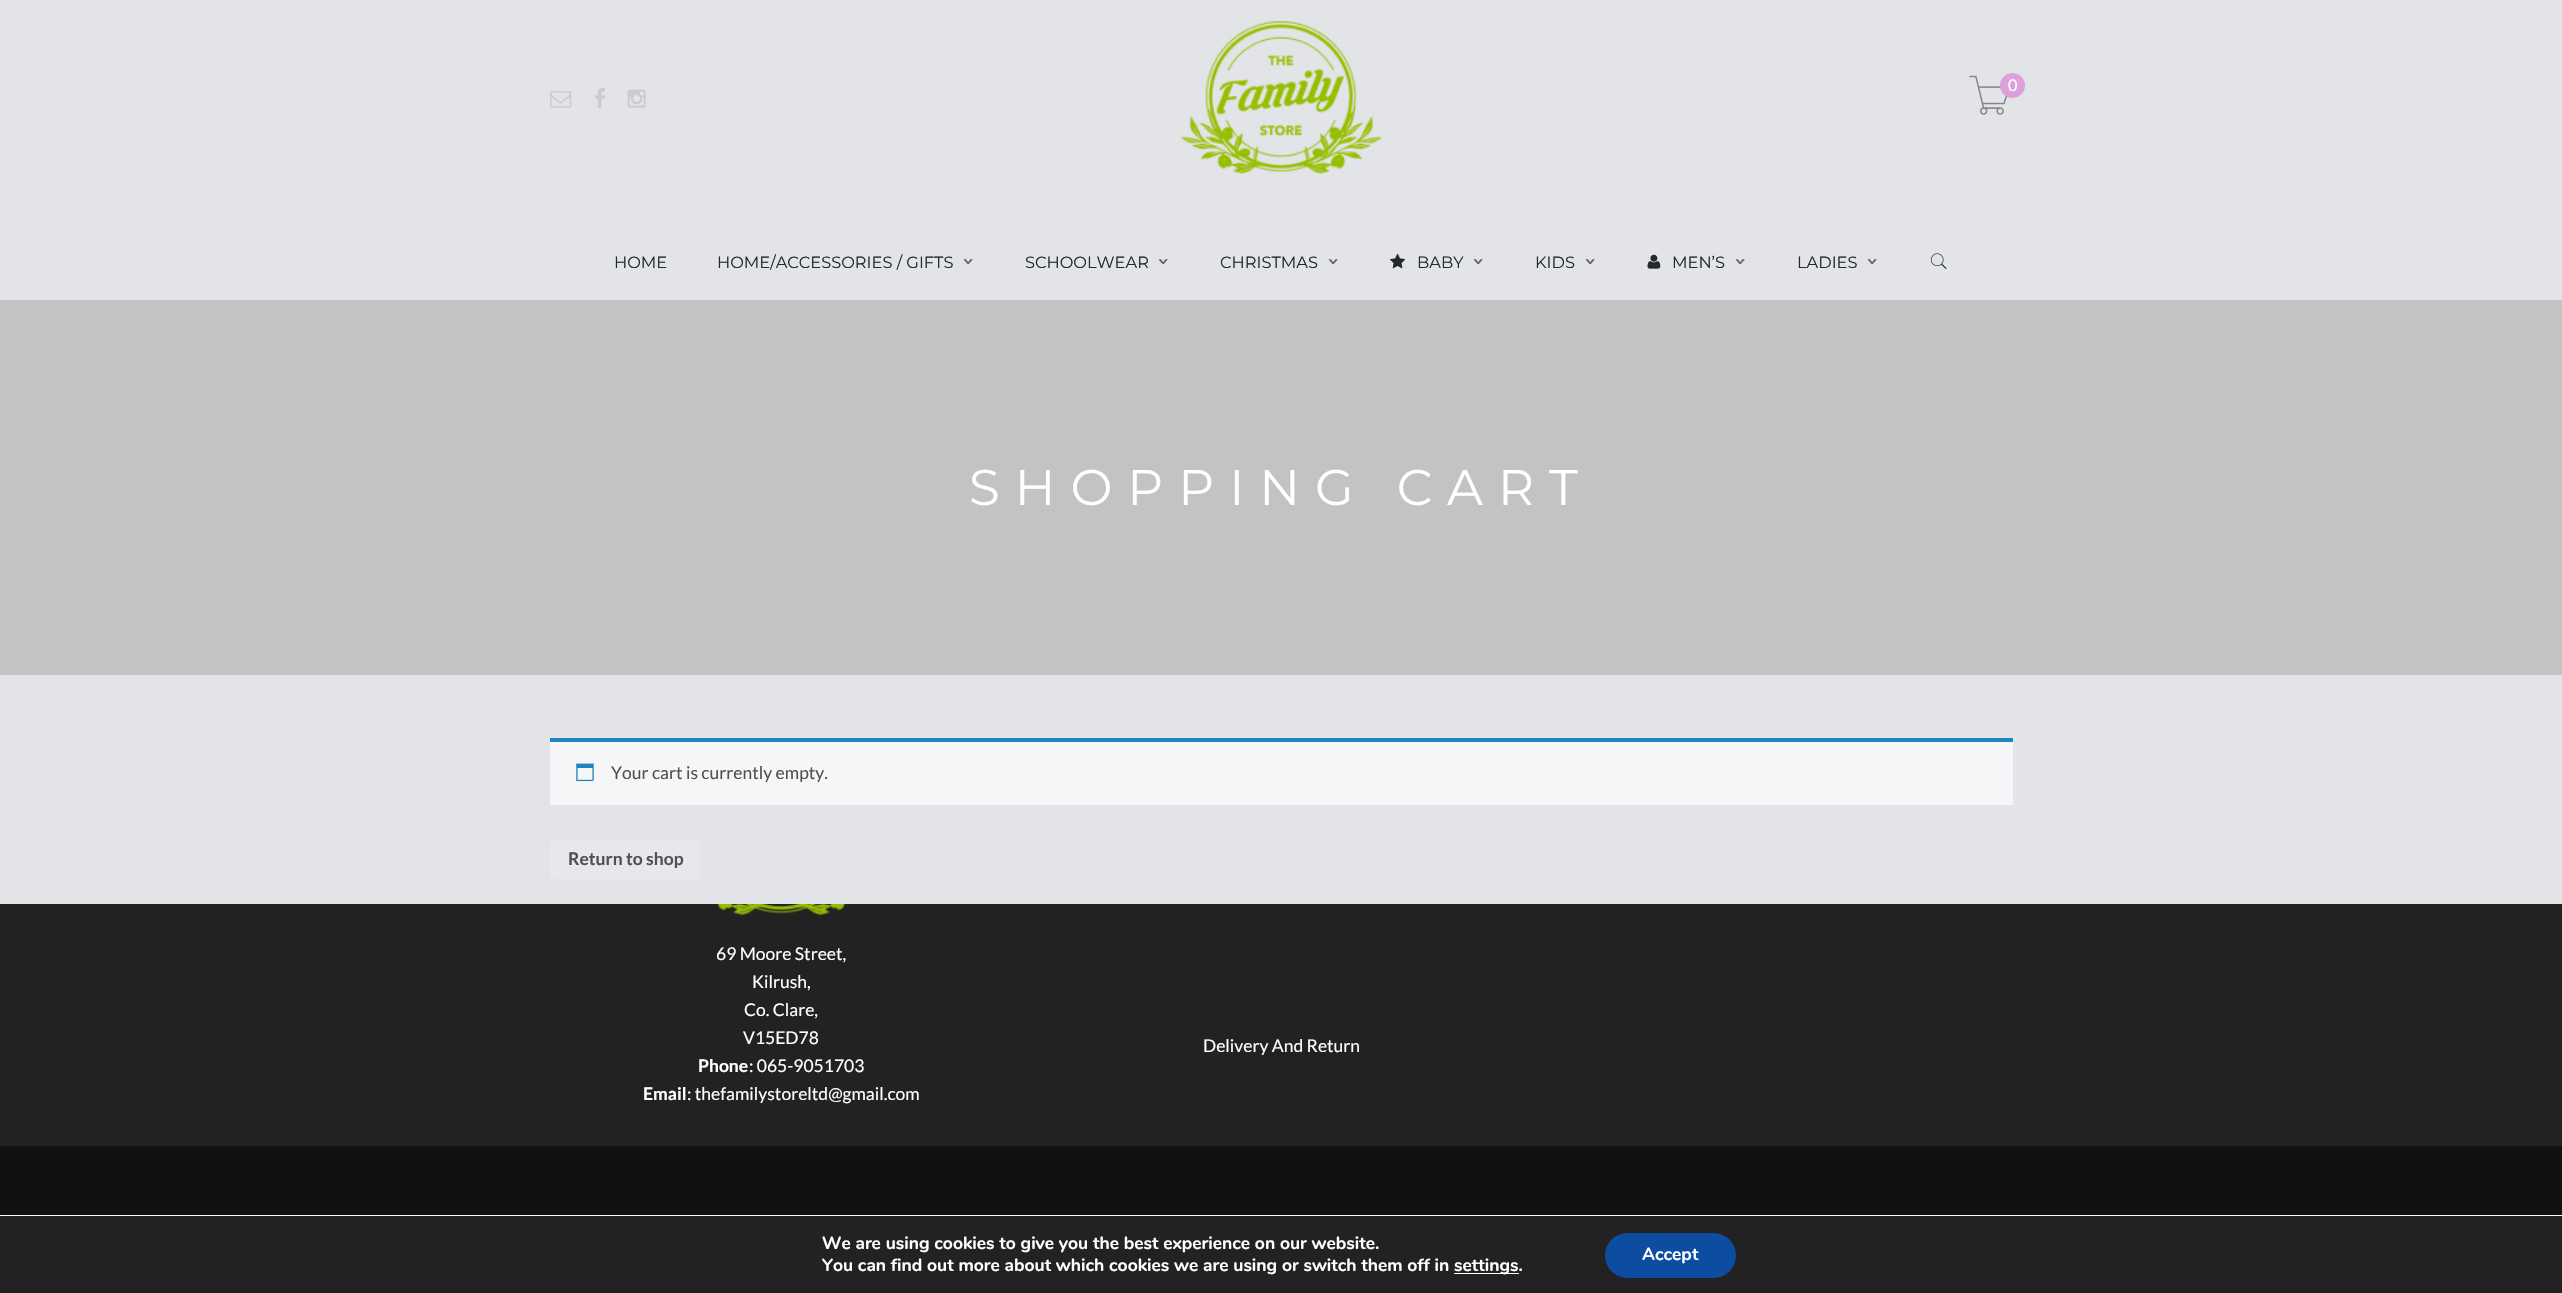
void draw(SkCanvas* canvas) {
	SkPaint fill;
	fill.setAntiAlias(true);
	auto makeFont = [&](const char* family, int weight, float size, bool italic = false) {
		SkFontStyle style(weight, SkFontStyle::kNormal_Width,
			italic ? SkFontStyle::kItalic_Slant : SkFontStyle::kUpright_Slant);
		SkFont result(fontMgr->matchFamilyStyle(family, style), size);
		result.setSubpixel(true);
		return result;
	};
	auto text = [&](const char* s, float x, float y, const SkFont& font) {
		canvas->drawString(s, x, y, font, fill);
	};
	auto spacedText = [&](const char* s, float x, float y, const SkFont& font, const SkPaint& ink, float letter, float word) {
		std::vector<SkGlyphID> glyphs(font.countText(s, strlen(s), SkTextEncoding::kUTF8));
		std::vector<float> xs(glyphs.size());
		font.textToGlyphs(s, strlen(s), SkTextEncoding::kUTF8, glyphs);
		font.getXPos(glyphs, xs, x);
		float extra = 0;
		for (size_t i = 0; i < glyphs.size(); i++) {
			xs[i] += extra;
			extra += letter + word * (glyphs[i] == font.unicharToGlyph(' '));
		}
		canvas->drawTextBlob(SkTextBlob::MakeFromPosHGlyphs(glyphs, xs, y, font), 0, 0, ink);
	};
	auto box = [&](float l, float t, float r, float b) {
		canvas->drawRect(SkRect::MakeLTRB(l, t, r, b), fill);
	};
	auto roundBox = [&](float l, float t, float r, float b, float radius) {
		canvas->drawRoundRect(SkRect::MakeLTRB(l, t, r, b), radius, radius, fill);
	};
	auto picture = [&](const char* path, float l, float t, float r, float b) {
		auto image = SkImages::DeferredFromEncodedData(SkData::MakeFromFileName(path));
		canvas->drawImageRect(image, SkRect::MakeLTRB(l, t, r, b), SkSamplingOptions());
	};
	canvas->clear(0xFF222222);
	fill.setColor(0xFFE2E4E7);
	box(0, 0, 2562, 300);
	picture("image0.png", 1181, 21, 1382, 174);
	picture("image1.png", 1969, 75, 2008, 115);
	fill.setColor(0xFFDDA0DD);
	canvas->drawCircle(2012.5f, 85.5f, 12.5f, fill);
	picture("image2.png", 550, 91, 572, 108);
	picture("image3.png", 595, 88, 605, 108);
	picture("image4.png", 627, 89, 646, 108);
	picture("image5.png", 1390, 253, 1405, 269);
	picture("image6.png", 1647, 254, 1661, 269);
	picture("image7.png", 1930, 253, 1947, 269);
	fill.setColor(0xFFE2E4E7);
	box(0, 675, 2562, 904);
	fill.setColor(0xFFC3C3C3);
	box(0, 300, 2562, 675);
	fill.setColor(0xFFF6F5F8);
	box(550, 742, 2013, 805);
	fill.setColor(0xFF1E85BE);
	box(550, 738, 2013, 742);
	picture("image8.png", 576, 763, 594, 782);
	fill.setColor(0xFFE9E6ED);
	roundBox(550, 840, 700, 879, 4);
	picture("image9.png", 717, 904, 846, 916);
	fill.setColor(0xFF111111);
	box(0, 1146, 2562, 1215);
	fill.setColor(0xFFFFFFFF);
	box(0, 1215, 2562, 1216);
	box(1454, 1273, 1519, 1274);
	fill.setColor(0xFF0C4DA2);
	roundBox(1605, 1233, 1736, 1278, 22.5f);
	auto font1 = makeFont("Lato", 400, 16.25f);
	fill.setColor(0xFFFFFFFF);
	text("0", 2008, 91, font1);
	auto font2 = makeFont("Montserrat", 400, 16.25f);
	fill.setColor(0xFF25292C);
	text("HOME", 614, 268, font2);
	text("HOME/ACCESSORIES / GIFTS", 717, 268, font2);
	auto font3 = makeFont("DejaVu Sans Mono", 700, 21);
	fill.setColor(0xFF666666);
	canvas->save();
	canvas->rotate(90, 962, 255);
	text("›", 962, 255, font3);
	canvas->restore();
	fill.setColor(0xFF25292C);
	text("SCHOOLWEAR", 1025, 268, font2);
	fill.setColor(0xFF666666);
	canvas->save();
	canvas->rotate(90, 1157, 255);
	text("›", 1157, 255, font3);
	canvas->restore();
	fill.setColor(0xFF25292C);
	text("CHRISTMAS", 1220, 268, font2);
	fill.setColor(0xFF666666);
	canvas->save();
	canvas->rotate(90, 1327, 255);
	text("›", 1327, 255, font3);
	canvas->restore();
	fill.setColor(0xFF25292C);
	text("BABY", 1417, 268, font2);
	fill.setColor(0xFF666666);
	canvas->save();
	canvas->rotate(90, 1472, 255);
	text("›", 1472, 255, font3);
	canvas->restore();
	fill.setColor(0xFF25292C);
	text("KIDS", 1535, 268, font2);
	fill.setColor(0xFF666666);
	canvas->save();
	canvas->rotate(90, 1584, 255);
	text("›", 1584, 255, font3);
	canvas->restore();
	fill.setColor(0xFF25292C);
	text("MEN’S", 1672, 268, font2);
	fill.setColor(0xFF666666);
	canvas->save();
	canvas->rotate(90, 1734, 255);
	text("›", 1734, 255, font3);
	canvas->restore();
	fill.setColor(0xFF25292C);
	text("LADIES", 1797, 268, font2);
	fill.setColor(0xFF666666);
	canvas->save();
	canvas->rotate(90, 1866, 255);
	text("›", 1866, 255, font3);
	canvas->restore();
	auto font4 = makeFont("Montserrat", 400, 50);
	fill.setColor(0xFFFFFFFF);
	spacedText("SHOPPING CART", 969, 505, font4, fill, 15, 0);
	auto font5 = makeFont("Lato", 400, 17.5f);
	fill.setColor(0xFF515151);
	text("Your cart is currently empty.", 611, 779, font5);
	auto font6 = makeFont("Lato", 700, 17.5f);
	text("Return to shop", 568, 865, font6);
	fill.setColor(0xFFFFFFFF);
	text("69 Moore Street,", 716, 960, font5);
	text("Kilrush,", 752, 988, font5);
	text("Co. Clare,", 744, 1016, font5);
	text("V15ED78", 743, 1044, font5);
	text("Phone", 698, 1072, font6);
	text(": 065-9051703", 749, 1072, font5);
	text("Email", 643, 1100, font6);
	text(": thefamilystoreltd@gmail.com", 687, 1100, font5);
	text("Delivery And Return", 1203, 1052, font5);
	auto font7 = makeFont("Nunito", 700, 17.5f);
	text("We are using cookies to give you the best experience on our website.", 822, 1249, font7);
	text("You can find out more about which cookies we are using or switch them off in", 822, 1271, font7);
	text("settings.", 1454, 1271, font7);
	text("Accept", 1642, 1260, font7);
}
